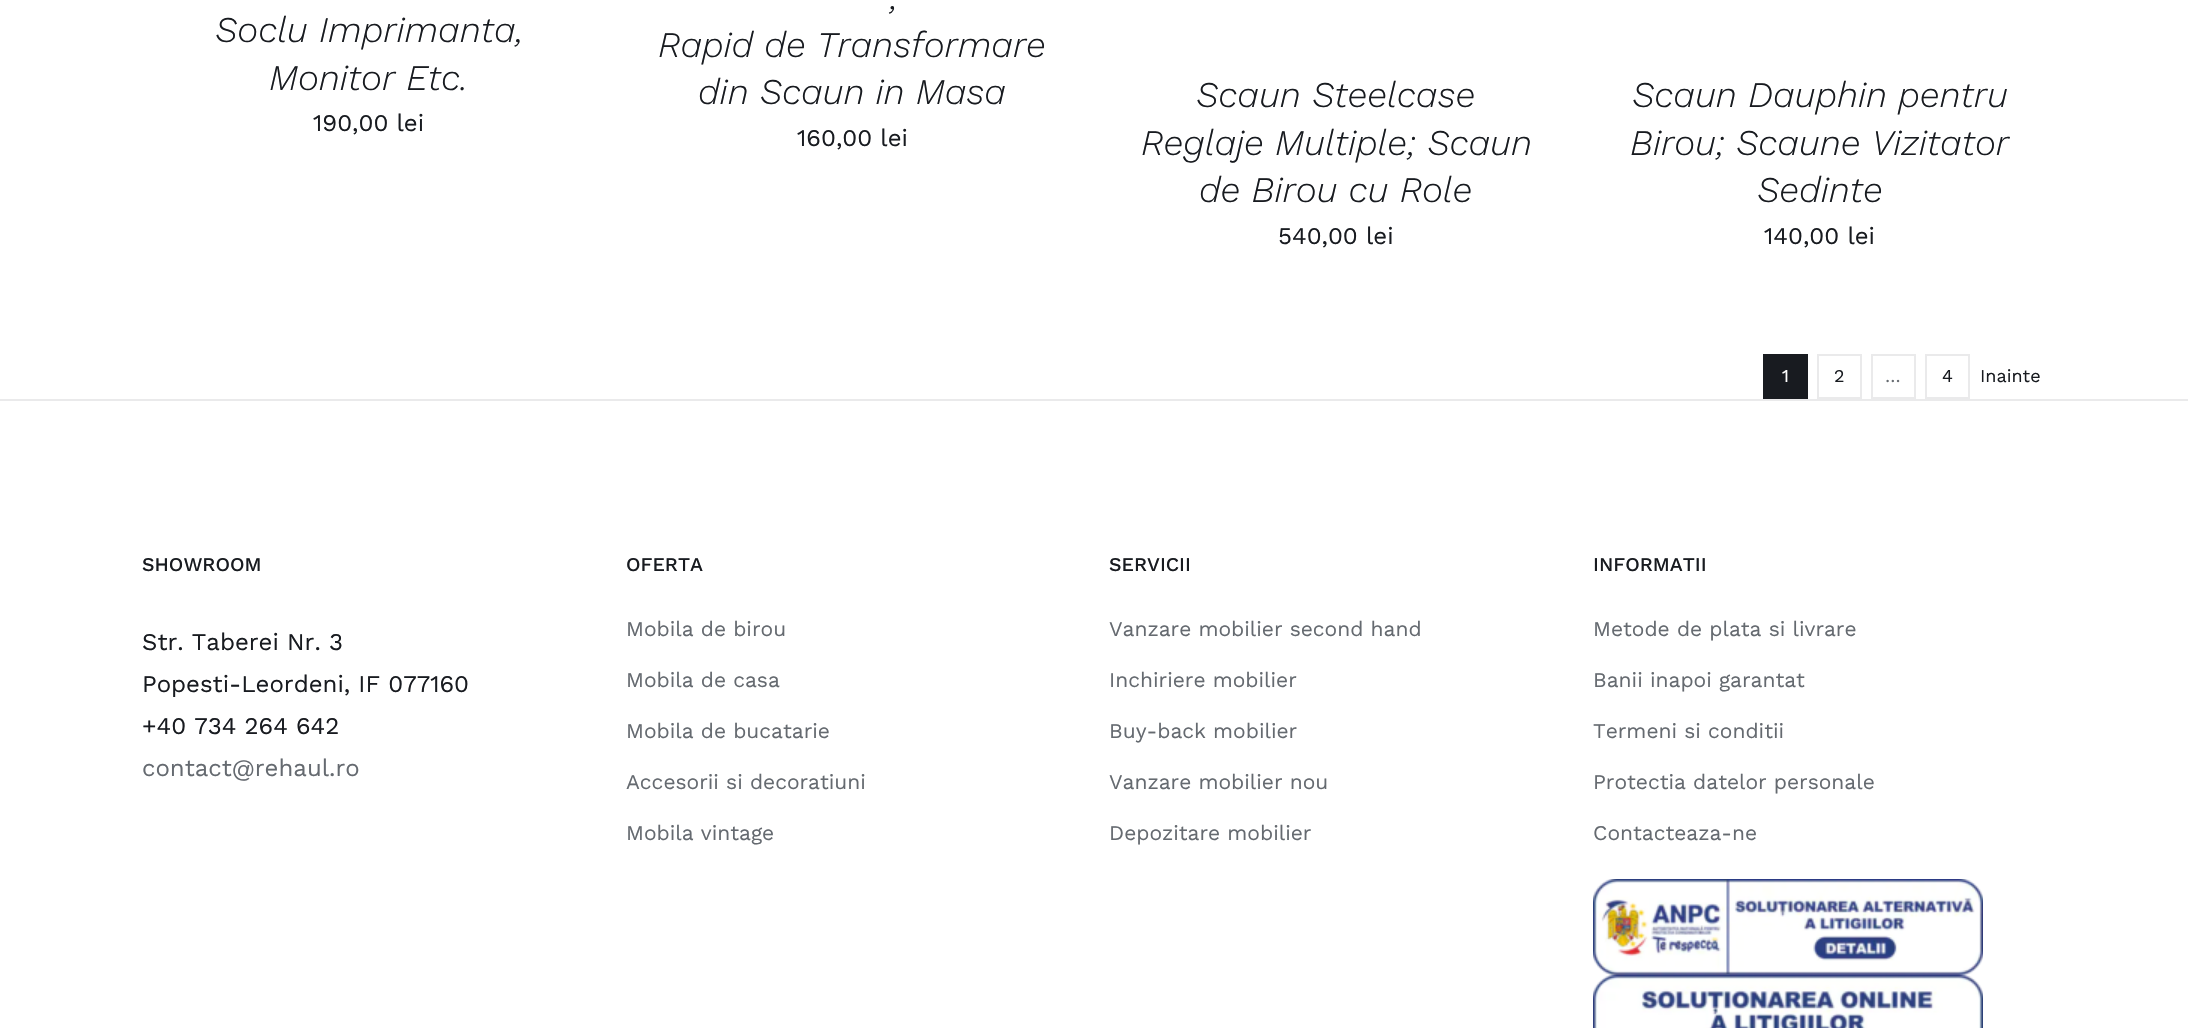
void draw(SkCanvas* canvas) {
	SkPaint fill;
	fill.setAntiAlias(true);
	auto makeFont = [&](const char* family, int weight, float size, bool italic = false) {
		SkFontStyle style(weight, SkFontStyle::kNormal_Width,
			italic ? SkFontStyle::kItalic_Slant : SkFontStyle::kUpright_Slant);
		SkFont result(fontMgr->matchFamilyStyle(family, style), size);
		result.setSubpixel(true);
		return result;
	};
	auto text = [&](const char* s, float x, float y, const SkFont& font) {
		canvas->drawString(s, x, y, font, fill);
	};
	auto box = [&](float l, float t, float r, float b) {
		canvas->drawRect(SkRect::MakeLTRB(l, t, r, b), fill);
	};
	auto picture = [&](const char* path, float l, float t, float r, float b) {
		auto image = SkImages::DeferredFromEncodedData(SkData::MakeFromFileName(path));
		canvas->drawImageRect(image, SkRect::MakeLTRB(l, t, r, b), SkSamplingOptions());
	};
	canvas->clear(0xFFFFFFFF);
	fill.setColor(0xFF181B20);
	box(1763, 354, 1808, 399);
	fill.setStyle(SkPaint::kStroke_Style);
	fill.setStrokeWidth(2);
	fill.setColor(0xFFEAEAEB);
	canvas->drawRect(SkRect::MakeLTRB(1818, 355, 1861, 398), fill);
	canvas->drawRect(SkRect::MakeLTRB(1872, 355, 1915, 398), fill);
	canvas->drawRect(SkRect::MakeLTRB(1926, 355, 1969, 398), fill);
	fill.setStyle(SkPaint::kFill_Style);
	box(0, 399, 2188, 401);
	picture("image0.png", 1593, 879, 1983, 976);
	picture("image1.png", 1593, 975, 1983, 1028);
	auto font1 = makeFont("Work Sans", 300, 36, true);
	fill.setColor(0xFF181B20);
	text("Soclu Imprimanta,", 215, 42, font1);
	text("Monitor Etc.", 269, 90, font1);
	auto font2 = makeFont("Work Sans", 400, 24);
	text("190,00 lei", 313, 131, font2);
	text(",", 890, 9, font1);
	text("Rapid de Transformare", 658, 57, font1);
	text("din Scaun in Masa", 698, 104, font1);
	text("160,00 lei", 797, 146, font2);
	text("Scaun Steelcase", 1196, 107, font1);
	text("Reglaje Multiple; Scaun", 1141, 155, font1);
	text("de Birou cu Role", 1199, 202, font1);
	text("540,00 lei", 1278, 244, font2);
	text("Scaun Dauphin pentru", 1632, 107, font1);
	text("Birou; Scaune Vizitator", 1630, 155, font1);
	text("Sedinte", 1757, 202, font1);
	text("140,00 lei", 1764, 244, font2);
	auto font3 = makeFont("Work Sans", 400, 18);
	fill.setColor(0xFFFFFFFF);
	text("1", 1782, 382, font3);
	fill.setColor(0xFF181B20);
	text("2", 1834, 382, font3);
	fill.setColor(0xFF656A70);
	text("…", 1885, 382, font3);
	fill.setColor(0xFF181B20);
	text("4", 1942, 382, font3);
	text("Inainte", 1980, 382, font3);
	auto font4 = makeFont("Work Sans", 500, 19.5f);
	text("SHOWROOM", 142, 571, font4);
	text("Str. Taberei Nr. 3", 142, 650, font2);
	text("Popesti-Leordeni, IF 077160", 142, 692, font2);
	text("+40 734 264 642", 142, 734, font2);
	fill.setColor(0xFF656A70);
	text("contact@rehaul.ro", 142, 776, font2);
	fill.setColor(0xFF181B20);
	text("OFERTA", 626, 571, font4);
	auto font5 = makeFont("Work Sans", 400, 21);
	fill.setColor(0xFF656A70);
	text("Mobila de birou", 626, 636, font5);
	text("Mobila de casa", 626, 687, font5);
	text("Mobila de bucatarie", 626, 738, font5);
	text("Accesorii si decoratiuni", 626, 789, font5);
	text("Mobila vintage", 626, 840, font5);
	fill.setColor(0xFF181B20);
	text("SERVICII", 1109, 571, font4);
	fill.setColor(0xFF656A70);
	text("Vanzare mobilier second hand", 1109, 636, font5);
	text("Inchiriere mobilier", 1109, 687, font5);
	text("Buy-back mobilier", 1109, 738, font5);
	text("Vanzare mobilier nou", 1109, 789, font5);
	text("Depozitare mobilier", 1109, 840, font5);
	fill.setColor(0xFF181B20);
	text("INFORMATII", 1593, 571, font4);
	fill.setColor(0xFF656A70);
	text("Metode de plata si livrare", 1593, 636, font5);
	text("Banii inapoi garantat", 1593, 687, font5);
	text("Termeni si conditii", 1593, 738, font5);
	text("Protectia datelor personale", 1593, 789, font5);
	text("Contacteaza-ne", 1593, 840, font5);
}
